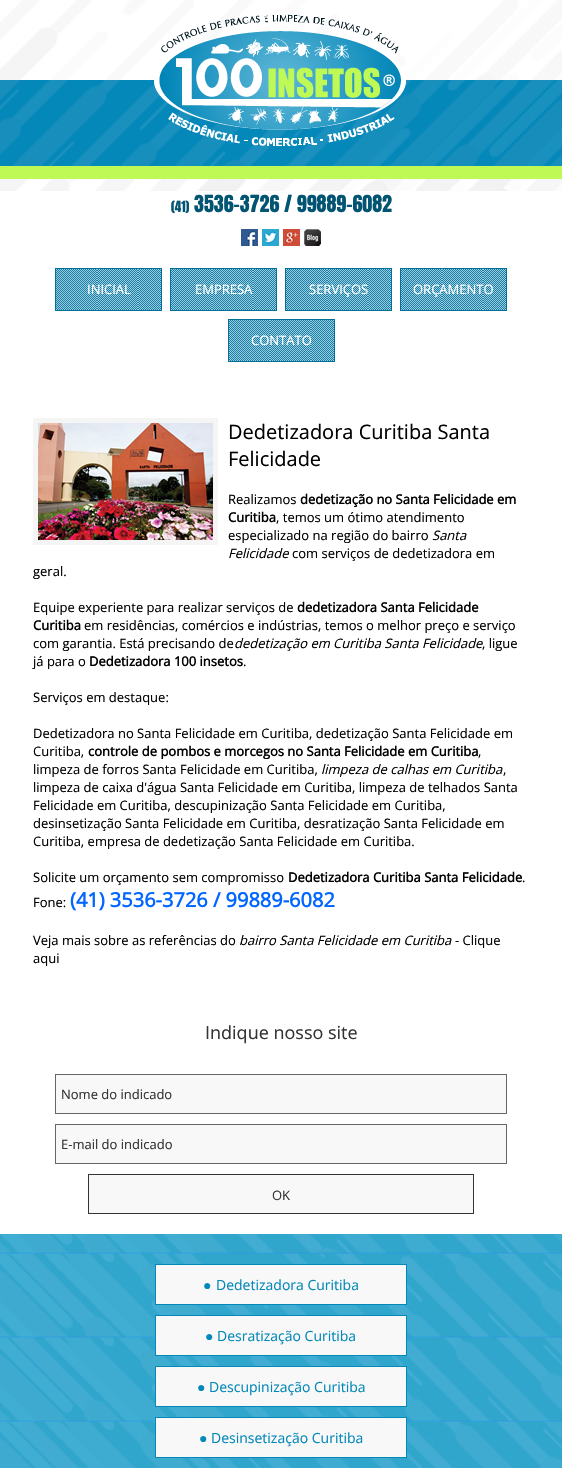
void draw(SkCanvas* canvas) {
	SkPaint fill;
	fill.setAntiAlias(true);
	auto makeFont = [&](const char* family, int weight, float size, bool italic = false) {
		SkFontStyle style(weight, SkFontStyle::kNormal_Width,
			italic ? SkFontStyle::kItalic_Slant : SkFontStyle::kUpright_Slant);
		SkFont result(fontMgr->matchFamilyStyle(family, style), size);
		result.setSubpixel(true);
		return result;
	};
	auto text = [&](const char* s, float x, float y, const SkFont& font) {
		canvas->drawString(s, x, y, font, fill);
	};
	auto picture = [&](const char* path, float l, float t, float r, float b) {
		auto image = SkImages::DeferredFromEncodedData(SkData::MakeFromFileName(path));
		canvas->drawImageRect(image, SkRect::MakeLTRB(l, t, r, b), SkSamplingOptions());
	};
	canvas->clear(0xFFFFFFFF);
	picture("image0.png", 0, 0, 562, 191);
	picture("image1.png", 154, 14, 406, 146);
	picture("image2.png", 241, 229, 258, 246);
	picture("image3.png", 262, 229, 279, 246);
	picture("image4.png", 283, 229, 300, 246);
	picture("image5.png", 304, 229, 321, 246);
	picture("image6.png", 56, 269, 161, 310);
	fill.setStyle(SkPaint::kStroke_Style);
	fill.setStrokeWidth(1);
	fill.setColor(0xFF037098);
	canvas->drawRect(SkRect::MakeLTRB(55.5f, 268.5f, 161.5f, 310.5f), fill);
	picture("image6.png", 171, 269, 276, 310);
	canvas->drawRect(SkRect::MakeLTRB(170.5f, 268.5f, 276.5f, 310.5f), fill);
	picture("image6.png", 286, 269, 391, 310);
	canvas->drawRect(SkRect::MakeLTRB(285.5f, 268.5f, 391.5f, 310.5f), fill);
	picture("image6.png", 401, 269, 506, 310);
	canvas->drawRect(SkRect::MakeLTRB(400.5f, 268.5f, 506.5f, 310.5f), fill);
	picture("image6.png", 229, 320, 334, 361);
	canvas->drawRect(SkRect::MakeLTRB(228.5f, 319.5f, 334.5f, 361.5f), fill);
	fill.setStrokeWidth(5);
	fill.setColor(0xFFF5F5F5);
	canvas->drawRect(SkRect::MakeLTRB(35.5f, 420.5f, 215.5f, 542.5f), fill);
	picture("image7.png", 38, 423, 213, 540);
	fill.setStyle(SkPaint::kFill_Style);
	fill.setColor(0xFFF8F8F8);
	canvas->drawRect(SkRect::MakeLTRB(55.5f, 1074.5f, 506.5f, 1113.5f), fill);
	fill.setStyle(SkPaint::kStroke_Style);
	fill.setStrokeWidth(1);
	fill.setColor(0xFF666666);
	canvas->drawRect(SkRect::MakeLTRB(55.5f, 1074.5f, 506.5f, 1113.5f), fill);
	fill.setStyle(SkPaint::kFill_Style);
	fill.setColor(0xFFF8F8F8);
	canvas->drawRect(SkRect::MakeLTRB(55.5f, 1124.5f, 506.5f, 1163.5f), fill);
	fill.setStyle(SkPaint::kStroke_Style);
	fill.setColor(0xFF666666);
	canvas->drawRect(SkRect::MakeLTRB(55.5f, 1124.5f, 506.5f, 1163.5f), fill);
	fill.setStyle(SkPaint::kFill_Style);
	fill.setColor(0xFFF8F8F8);
	canvas->drawRect(SkRect::MakeLTRB(88.5f, 1174.5f, 473.5f, 1213.5f), fill);
	fill.setStyle(SkPaint::kStroke_Style);
	fill.setColor(0xFF333333);
	canvas->drawRect(SkRect::MakeLTRB(88.5f, 1174.5f, 473.5f, 1213.5f), fill);
	picture("image8.png", 0, 1234, 562, 1468);
	fill.setStyle(SkPaint::kFill_Style);
	fill.setColor(0xFFF8F8F8);
	canvas->drawRect(SkRect::MakeLTRB(155.5f, 1264.5f, 406.5f, 1304.5f), fill);
	fill.setStyle(SkPaint::kStroke_Style);
	fill.setColor(0xFF0488B9);
	canvas->drawRect(SkRect::MakeLTRB(155.5f, 1264.5f, 406.5f, 1304.5f), fill);
	fill.setStyle(SkPaint::kFill_Style);
	fill.setColor(0xFFF8F8F8);
	canvas->drawRect(SkRect::MakeLTRB(155.5f, 1315.5f, 406.5f, 1355.5f), fill);
	fill.setStyle(SkPaint::kStroke_Style);
	fill.setColor(0xFF0488B9);
	canvas->drawRect(SkRect::MakeLTRB(155.5f, 1315.5f, 406.5f, 1355.5f), fill);
	fill.setStyle(SkPaint::kFill_Style);
	fill.setColor(0xFFF8F8F8);
	canvas->drawRect(SkRect::MakeLTRB(155.5f, 1366.5f, 406.5f, 1406.5f), fill);
	fill.setStyle(SkPaint::kStroke_Style);
	fill.setColor(0xFF0488B9);
	canvas->drawRect(SkRect::MakeLTRB(155.5f, 1366.5f, 406.5f, 1406.5f), fill);
	fill.setStyle(SkPaint::kFill_Style);
	fill.setColor(0xFFF8F8F8);
	canvas->drawRect(SkRect::MakeLTRB(155.5f, 1417.5f, 406.5f, 1457.5f), fill);
	fill.setStyle(SkPaint::kStroke_Style);
	fill.setColor(0xFF0488B9);
	canvas->drawRect(SkRect::MakeLTRB(155.5f, 1417.5f, 406.5f, 1457.5f), fill);
	auto font1 = makeFont("Anton", 400, 13);
	fill.setStyle(SkPaint::kFill_Style);
	fill.setColor(0xFF025473);
	text("(41)", 171, 212, font1);
	auto font2 = makeFont("Anton", 400, 20);
	text("3536-3726 / 99889-6082", 194, 212, font2);
	auto font3 = makeFont("Open Sans", 400, 13);
	fill.setColor(0xFFFFFFFF);
	text("INICIAL", 87, 294, font3);
	text("EMPRESA", 195, 294, font3);
	text("SERVIÇOS", 309, 294, font3);
	text("ORÇAMENTO", 413, 294, font3);
	text("CONTATO", 251, 345, font3);
	auto font4 = makeFont("Open Sans", 400, 20);
	fill.setColor(0xFF000000);
	text("Dedetizadora Curitiba Santa", 228, 439, font4);
	text("Felicidade", 228, 466, font4);
	text("Realizamos", 228, 504, font3);
	auto font5 = makeFont("Open Sans", 700, 13);
	text("dedetização no Santa Felicidade em", 300, 504, font5);
	text("Curitiba", 228, 522, font5);
	text(", temos um ótimo atendimento", 276, 522, font3);
	text("especializado na região do bairro", 228, 540, font3);
	auto font6 = makeFont("Open Sans", 400, 13, true);
	text("Santa", 432, 540, font6);
	text("Felicidade", 228, 558, font6);
	text("com serviços de dedetizadora em", 292, 558, font3);
	text("geral.", 33, 576, font3);
	text("Equipe experiente para realizar serviços de", 33, 612, font3);
	text("dedetizadora Santa Felicidade", 297, 612, font5);
	text("Curitiba", 33, 630, font5);
	text("em residências, comércios e indústrias, temos o melhor preço e serviço", 84, 630, font3);
	text("com garantia. Está precisando de", 33, 648, font3);
	text("dedetização em Curitiba Santa Felicidade", 234, 648, font6);
	text(", ligue", 482, 648, font3);
	text("já para o", 33, 666, font3);
	text("Dedetizadora 100 insetos", 89, 666, font5);
	text(".", 243, 666, font3);
	text("Serviços em destaque:", 33, 702, font3);
	text("Dedetizadora no Santa Felicidade em Curitiba, dedetização Santa Felicidade em", 33, 738, font3);
	text("Curitiba,", 33, 756, font3);
	text("controle de pombos e morcegos no Santa Felicidade em Curitiba", 88, 756, font5);
	text(",", 478, 756, font3);
	text("limpeza de forros Santa Felicidade em Curitiba,", 33, 774, font3);
	text("limpeza de calhas em Curitiba", 321, 774, font6);
	text(",", 503, 774, font3);
	text("limpeza de caixa d'água Santa Felicidade em Curitiba, limpeza de telhados Santa", 33, 792, font3);
	text("Felicidade em Curitiba, descupinização Santa Felicidade em Curitiba,", 33, 810, font3);
	text("desinsetização Santa Felicidade em Curitiba, desratização Santa Felicidade em", 33, 828, font3);
	text("Curitiba, empresa de dedetização Santa Felicidade em Curitiba.", 33, 846, font3);
	text("Solicite um orçamento sem compromisso", 33, 882, font3);
	text("Dedetizadora Curitiba Santa Felicidade", 288, 882, font5);
	text(".", 522, 882, font3);
	text("Fone:", 33, 907, font3);
	auto font7 = makeFont("Open Sans", 700, 20);
	fill.setColor(0xFF0066FF);
	text("(41) 3536-3726 / 99889-6082", 70, 907, font7);
	fill.setColor(0xFF000000);
	text("Veja mais sobre as referências do", 33, 945, font3);
	text("bairro Santa Felicidade em Curitiba", 239, 945, font6);
	text("- Clique", 455, 945, font3);
	text("aqui", 33, 963, font3);
	auto font8 = makeFont("Open Sans", 400, 18);
	fill.setColor(0xFF333333);
	text("Indique nosso site", 205, 1039, font8);
	text("Nome do indicado", 61, 1099, font3);
	text("E-mail do indicado", 61, 1149, font3);
	text("OK", 272, 1200, font3);
	auto font9 = makeFont("Liberation Sans", 400, 14);
	fill.setColor(0xFF0488B9);
	text("●", 203, 1290, font9);
	auto font10 = makeFont("Open Sans", 400, 14);
	text("Dedetizadora Curitiba", 216, 1290, font10);
	text("●", 205, 1341, font9);
	text("Desratização Curitiba", 217, 1341, font10);
	text("●", 197, 1392, font9);
	text("Descupinização Curitiba", 209, 1392, font10);
	text("●", 199, 1443, font9);
	text("Desinsetização Curitiba", 211, 1443, font10);
}
